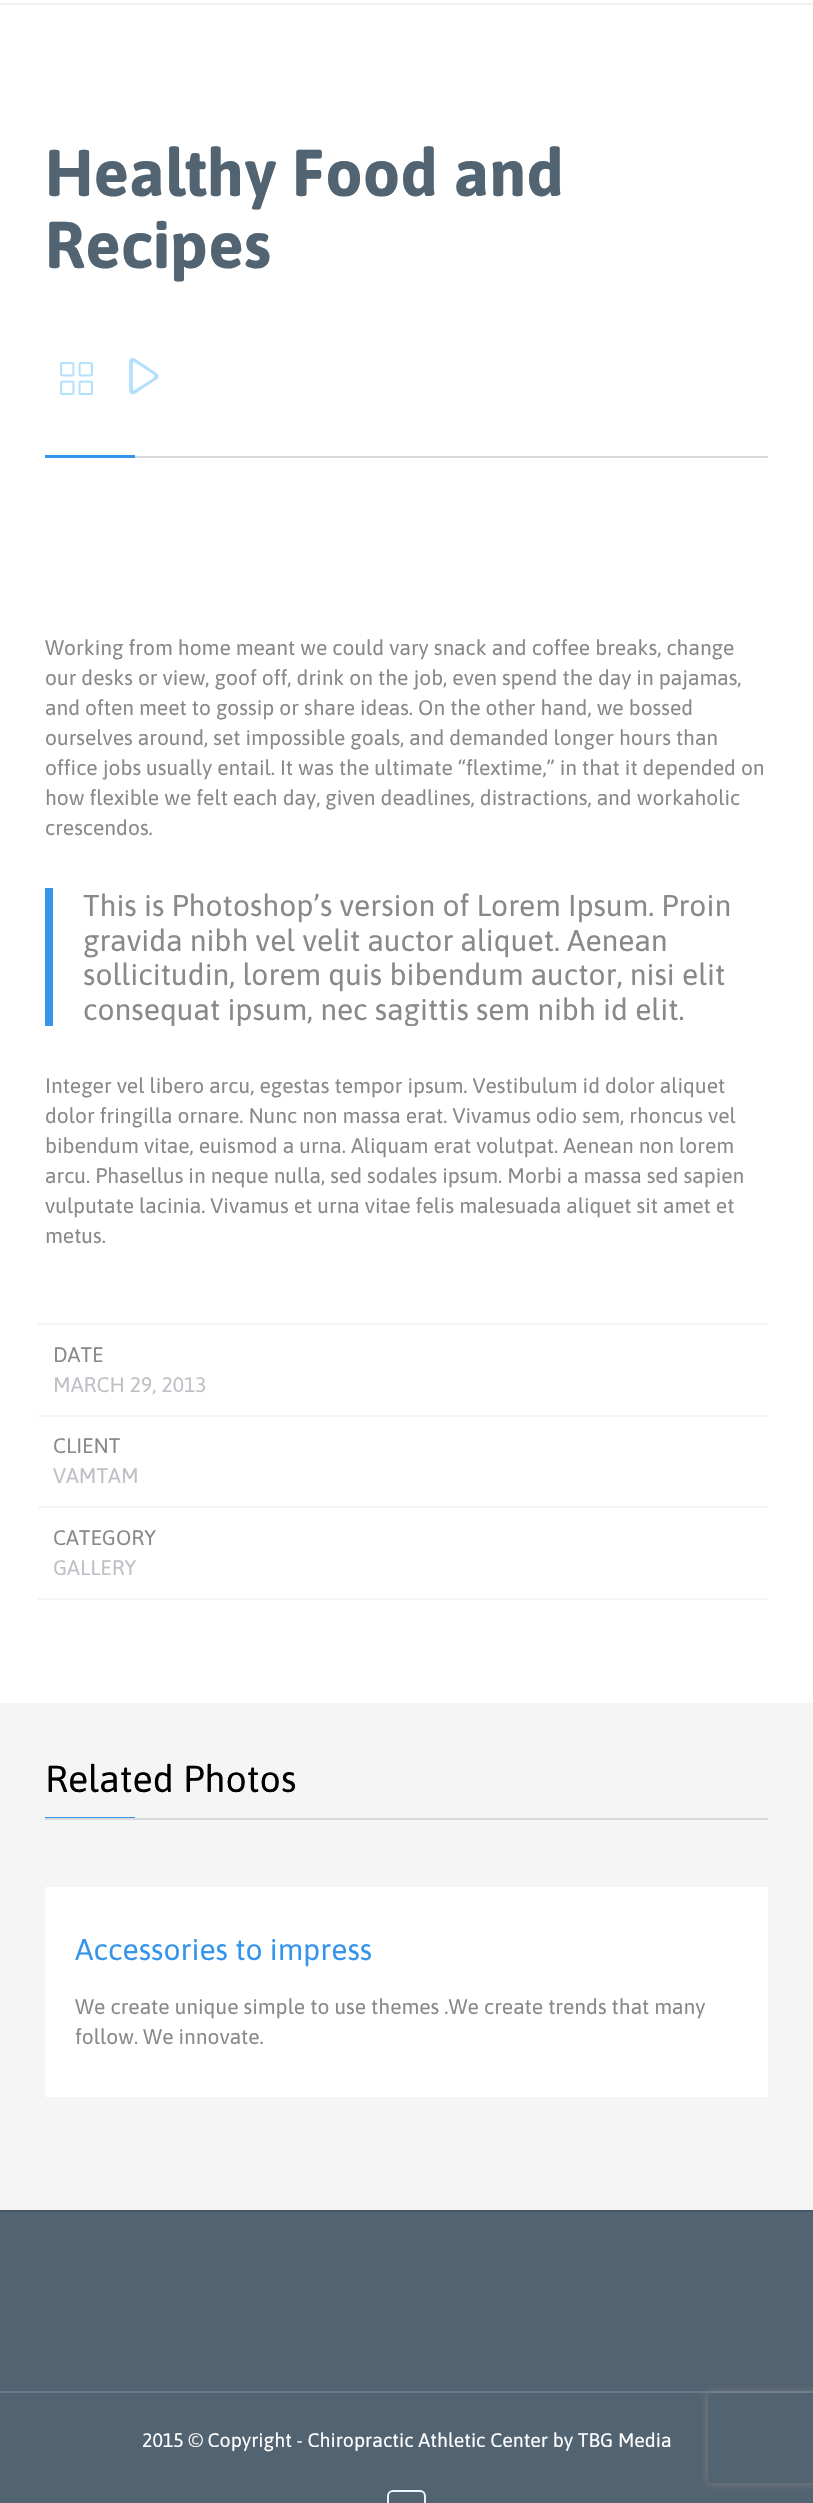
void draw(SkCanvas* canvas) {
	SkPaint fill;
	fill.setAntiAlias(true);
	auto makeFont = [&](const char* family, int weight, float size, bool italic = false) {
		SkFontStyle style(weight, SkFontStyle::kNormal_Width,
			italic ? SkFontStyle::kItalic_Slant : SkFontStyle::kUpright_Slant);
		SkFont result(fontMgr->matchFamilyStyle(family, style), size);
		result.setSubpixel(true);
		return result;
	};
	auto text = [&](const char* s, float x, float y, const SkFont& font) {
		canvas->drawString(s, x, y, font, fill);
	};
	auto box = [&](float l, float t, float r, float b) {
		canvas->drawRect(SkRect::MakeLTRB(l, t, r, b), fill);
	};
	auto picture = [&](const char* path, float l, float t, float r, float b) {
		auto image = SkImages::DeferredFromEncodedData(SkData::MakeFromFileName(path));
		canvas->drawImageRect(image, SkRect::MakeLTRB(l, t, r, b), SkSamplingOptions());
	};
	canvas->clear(0xFFFFFFFF);
	fill.setColor(0xFFF0F0F1);
	box(0, 3, 813, 5);
	fill.setColor(0xFFDADADE);
	box(135, 456, 768, 458);
	picture("image0.png", 60, 362, 93, 396);
	picture("image1.png", 129, 357, 159, 395);
	fill.setColor(0xFF3695EB);
	box(45, 455, 135, 458);
	box(45, 888, 53, 1026);
	fill.setColor(0xFFF5F5F6);
	box(38, 1323, 768, 1325);
	box(38, 1415, 768, 1417);
	box(38, 1506, 768, 1508);
	box(38, 1598, 768, 1600);
	box(0, 1703, 813, 2210);
	fill.setColor(0xFFDADADE);
	box(45, 1818, 768, 1820);
	fill.setColor(0xFF3695EB);
	box(45, 1817, 135, 1818);
	fill.setColor(0xFFFFFFFF);
	box(45, 1887, 768, 2097);
	fill.setColor(0xFF526371);
	box(0, 2212, 813, 2391);
	fill.setColor(0xFF475662);
	box(0, 2210, 813, 2212);
	fill.setColor(0xFF677D8F);
	box(0, 2391, 813, 2393);
	fill.setColor(0xFF526371);
	box(0, 2393, 813, 2503);
	fill.setStyle(SkPaint::kStroke_Style);
	fill.setStrokeWidth(2);
	fill.setColor(0xFFE7F6FF);
	canvas->drawRoundRect(SkRect::MakeLTRB(388, 2491, 425, 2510), 5, 5, fill);
	canvas->save();
	canvas->clipPath(SkPathBuilder(SkPathFillType::kEvenOdd).moveTo(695, 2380).lineTo(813, 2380).lineTo(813, 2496).lineTo(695, 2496).close().moveTo(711, 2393).lineTo(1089, 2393).cubicTo(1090.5f, 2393, 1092, 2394.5f, 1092, 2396).lineTo(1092, 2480).cubicTo(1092, 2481.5f, 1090.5f, 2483, 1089, 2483).lineTo(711, 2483).cubicTo(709.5f, 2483, 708, 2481.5f, 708, 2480).lineTo(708, 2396).cubicTo(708, 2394.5f, 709.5f, 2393, 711, 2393).close().detach(), true);
	fill.setStyle(SkPaint::kFill_Style);
	fill.setColor(0xFF808080);
	fill.setMaskFilter(SkMaskFilter::MakeBlur(kNormal_SkBlurStyle, 4));
	canvas->drawRoundRect(SkRect::MakeLTRB(708, 2393, 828, 2483), 3, 3, fill);
	fill.setMaskFilter(nullptr);
	canvas->restore();
	auto font1 = makeFont("Asap", 700, 66);
	fill.setColor(0xFF526371);
	text("Healthy Food and", 45, 196, font1);
	text("Recipes", 45, 268, font1);
	auto font2 = makeFont("Asap", 400, 21);
	fill.setColor(0xFF898989);
	text("Working from home meant we could vary snack and coffee breaks, change", 45, 655, font2);
	text("our desks or view, goof off, drink on the job, even spend the day in pajamas,", 45, 685, font2);
	text("and often meet to gossip or share ideas. On the other hand, we bossed", 45, 715, font2);
	text("ourselves around, set impossible goals, and demanded longer hours than", 45, 745, font2);
	text("office jobs usually entail. It was the ultimate “flextime,” in that it depended on", 45, 775, font2);
	text("how flexible we felt each day, given deadlines, distractions, and workaholic", 45, 805, font2);
	text("crescendos.", 45, 835, font2);
	auto font3 = makeFont("Asap", 400, 30);
	text("This is Photoshop’s version of Lorem Ipsum. Proin", 83, 916, font3);
	text("gravida nibh vel velit auctor aliquet. Aenean", 83, 951, font3);
	text("sollicitudin, lorem quis bibendum auctor, nisi elit", 83, 985, font3);
	canvas->save();
	canvas->clipRect(SkRect::MakeLTRB(53, 888, 768, 1026));
	text("consequat ipsum, nec sagittis sem nibh id elit.", 83, 1020, font3);
	canvas->restore();
	text("Integer vel libero arcu, egestas tempor ipsum. Vestibulum id dolor aliquet", 45, 1093, font2);
	text("dolor fringilla ornare. Nunc non massa erat. Vivamus odio sem, rhoncus vel", 45, 1123, font2);
	text("bibendum vitae, euismod a urna. Aliquam erat volutpat. Aenean non lorem", 45, 1153, font2);
	text("arcu. Phasellus in neque nulla, sed sodales ipsum. Morbi a massa sed sapien", 45, 1183, font2);
	text("vulputate lacinia. Vivamus et urna vitae felis malesuada aliquet sit amet et", 45, 1213, font2);
	text("metus.", 45, 1243, font2);
	text("DATE", 53, 1362, font2);
	fill.setColor(0xFFBFBFC6);
	text("MARCH 29, 2013", 53, 1392, font2);
	fill.setColor(0xFF898989);
	text("CLIENT", 53, 1453, font2);
	fill.setColor(0xFFBFBFC6);
	text("VAMTAM", 53, 1483, font2);
	fill.setColor(0xFF898989);
	text("CATEGORY", 53, 1545, font2);
	fill.setColor(0xFFBFBFC6);
	text("GALLERY", 53, 1575, font2);
	auto font4 = makeFont("Asap", 400, 37.5f);
	fill.setColor(0xFF000000);
	text("Related Photos", 45, 1792, font4);
	fill.setColor(0xFF3695EB);
	text("Accessories to impress", 75, 1960, font3);
	fill.setColor(0xFF898989);
	text("We create unique simple to use themes .We create trends that many", 75, 2014, font2);
	text("follow. We innovate.", 75, 2044, font2);
	auto font5 = makeFont("Asap", 400, 19.5f);
	fill.setColor(0xFFFFFFFF);
	text("2015 © Copyright - Chiropractic Athletic Center by TBG Media", 142, 2447, font5);
}
